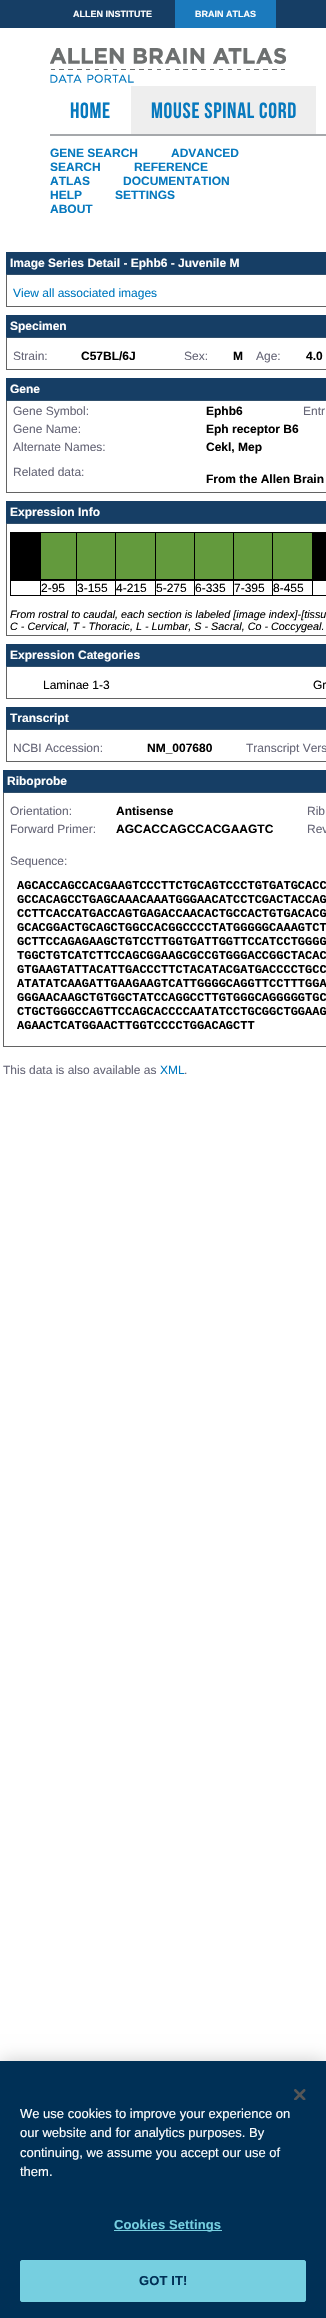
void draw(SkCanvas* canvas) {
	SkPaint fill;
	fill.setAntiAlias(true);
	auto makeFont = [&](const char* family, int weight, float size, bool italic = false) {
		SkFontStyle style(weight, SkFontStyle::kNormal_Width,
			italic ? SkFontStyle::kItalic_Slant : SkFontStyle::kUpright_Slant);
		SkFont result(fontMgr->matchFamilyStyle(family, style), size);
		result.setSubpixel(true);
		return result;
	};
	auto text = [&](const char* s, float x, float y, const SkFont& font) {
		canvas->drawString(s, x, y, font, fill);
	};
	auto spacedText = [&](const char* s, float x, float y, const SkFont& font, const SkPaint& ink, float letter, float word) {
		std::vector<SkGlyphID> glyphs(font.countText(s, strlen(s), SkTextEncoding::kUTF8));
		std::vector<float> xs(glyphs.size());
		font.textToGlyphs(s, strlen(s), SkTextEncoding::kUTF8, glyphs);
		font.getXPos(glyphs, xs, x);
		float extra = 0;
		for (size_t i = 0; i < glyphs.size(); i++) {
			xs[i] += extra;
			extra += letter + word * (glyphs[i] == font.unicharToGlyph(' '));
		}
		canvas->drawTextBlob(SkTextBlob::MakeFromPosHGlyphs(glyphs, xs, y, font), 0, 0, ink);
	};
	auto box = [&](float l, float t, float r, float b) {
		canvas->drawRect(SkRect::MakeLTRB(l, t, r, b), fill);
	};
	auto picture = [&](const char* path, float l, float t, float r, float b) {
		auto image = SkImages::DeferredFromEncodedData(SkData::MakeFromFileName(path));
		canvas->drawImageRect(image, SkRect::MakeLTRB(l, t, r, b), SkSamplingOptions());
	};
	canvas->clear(0xFFFFFFFF);
	fill.setColor(0xFF163E65);
	box(0, 0, 326, 28);
	fill.setColor(0xFF1B7ABD);
	box(175, 0, 276, 28);
	fill.setColor(0xFFA5A8AB);
	box(50, 134, 326, 136);
	picture("image0.png", 50, 48, 286, 83);
	fill.setColor(0xFFEEEEEE);
	box(131, 86, 316, 134);
	fill.setStyle(SkPaint::kStroke_Style);
	fill.setStrokeWidth(1);
	fill.setColor(0xFF636363);
	canvas->drawRect(SkRect::MakeLTRB(6.5f, 252.5f, 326.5f, 306.5f), fill);
	fill.setStyle(SkPaint::kFill_Style);
	fill.setColor(0xFF163E65);
	box(6, 252, 326, 274);
	fill.setColor(0xFF31506C);
	box(6, 274, 326, 275);
	fill.setStyle(SkPaint::kStroke_Style);
	fill.setColor(0xFF636363);
	canvas->drawRect(SkRect::MakeLTRB(6.5f, 315.5f, 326.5f, 369.5f), fill);
	fill.setStyle(SkPaint::kFill_Style);
	fill.setColor(0xFF163E65);
	box(6, 315, 326, 337);
	fill.setColor(0xFF31506C);
	box(6, 337, 326, 338);
	fill.setStyle(SkPaint::kStroke_Style);
	fill.setColor(0xFF636363);
	canvas->drawRect(SkRect::MakeLTRB(6.5f, 378.5f, 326.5f, 492.5f), fill);
	fill.setStyle(SkPaint::kFill_Style);
	fill.setColor(0xFF163E65);
	box(6, 378, 326, 400);
	fill.setColor(0xFF31506C);
	box(6, 400, 326, 401);
	fill.setStyle(SkPaint::kStroke_Style);
	fill.setColor(0xFF636363);
	canvas->drawRect(SkRect::MakeLTRB(6.5f, 501.5f, 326.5f, 635.5f), fill);
	fill.setStyle(SkPaint::kFill_Style);
	fill.setColor(0xFF163E65);
	box(6, 501, 326, 523);
	fill.setColor(0xFF31506C);
	box(6, 523, 326, 524);
	fill.setColor(0xFF000000);
	box(10, 532, 11, 596);
	box(11, 532, 326, 533);
	box(40, 532, 41, 580);
	box(11, 579, 41, 581);
	box(11, 533, 40, 579);
	box(76, 532, 77, 580);
	box(41, 579, 77, 581);
	fill.setColor(0xFF639A3D);
	box(41, 533, 76, 579);
	fill.setColor(0xFF000000);
	box(115, 532, 116, 580);
	box(77, 579, 116, 581);
	fill.setColor(0xFF639A3D);
	box(77, 533, 115, 579);
	fill.setColor(0xFF000000);
	box(155, 532, 156, 580);
	box(116, 579, 156, 581);
	fill.setColor(0xFF639A3D);
	box(116, 533, 155, 579);
	fill.setColor(0xFF000000);
	box(194, 532, 195, 580);
	box(156, 579, 195, 581);
	fill.setColor(0xFF639A3D);
	box(156, 533, 194, 579);
	fill.setColor(0xFF000000);
	box(233, 532, 234, 580);
	box(195, 579, 234, 581);
	fill.setColor(0xFF639A3D);
	box(195, 533, 233, 579);
	fill.setColor(0xFF000000);
	box(272, 532, 273, 580);
	box(234, 579, 273, 581);
	fill.setColor(0xFF639A3D);
	box(234, 533, 272, 579);
	fill.setColor(0xFF000000);
	box(312, 532, 313, 580);
	box(273, 579, 326, 580);
	fill.setColor(0xFF639A3D);
	box(273, 533, 312, 579);
	fill.setColor(0xFF000000);
	box(313, 533, 326, 579);
	box(40, 580, 41, 596);
	box(11, 595, 41, 596);
	box(76, 580, 77, 596);
	box(41, 595, 77, 596);
	box(115, 580, 116, 596);
	box(77, 595, 116, 596);
	box(155, 580, 156, 596);
	box(116, 595, 156, 596);
	box(194, 580, 195, 596);
	box(156, 595, 195, 596);
	box(233, 580, 234, 596);
	box(195, 595, 234, 596);
	box(272, 580, 273, 596);
	box(234, 595, 273, 596);
	box(273, 580, 326, 581);
	box(312, 580, 313, 596);
	box(273, 595, 326, 596);
	fill.setStyle(SkPaint::kStroke_Style);
	fill.setColor(0xFF636363);
	canvas->drawRect(SkRect::MakeLTRB(6.5f, 644.5f, 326.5f, 698.5f), fill);
	fill.setStyle(SkPaint::kFill_Style);
	fill.setColor(0xFF163E65);
	box(6, 644, 326, 666);
	fill.setColor(0xFF31506C);
	box(6, 666, 326, 667);
	fill.setStyle(SkPaint::kStroke_Style);
	fill.setColor(0xFF636363);
	canvas->drawRect(SkRect::MakeLTRB(6.5f, 707.5f, 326.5f, 761.5f), fill);
	fill.setStyle(SkPaint::kFill_Style);
	fill.setColor(0xFF163E65);
	box(6, 707, 326, 729);
	fill.setColor(0xFF31506C);
	box(6, 729, 326, 730);
	fill.setStyle(SkPaint::kStroke_Style);
	fill.setColor(0xFF636363);
	canvas->drawRect(SkRect::MakeLTRB(3.5f, 770.5f, 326.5f, 1046.5f), fill);
	fill.setStyle(SkPaint::kFill_Style);
	fill.setColor(0xFF163E65);
	box(3, 770, 326, 792);
	fill.setColor(0xFF31506C);
	box(3, 792, 326, 793);
	fill.setColor(0x33000000);
	fill.setMaskFilter(SkMaskFilter::MakeBlur(kNormal_SkBlurStyle, 9));
	canvas->drawRect(SkRect::MakeLTRB(0, 2061, 326, 2318), fill);
	fill.setMaskFilter(nullptr);
	fill.setColor(0xFF003056);
	box(0, 2061, 326, 2318);
	picture("image1.png", 294, 2089, 306, 2100);
	fill.setColor(0xFF76CFE0);
	box(114, 2230, 222, 2231);
	canvas->drawRoundRect(SkRect::MakeLTRB(20.5f, 2260.5f, 305.5f, 2301.5f), 1.5f, 1.5f, fill);
	fill.setStyle(SkPaint::kStroke_Style);
	canvas->drawRoundRect(SkRect::MakeLTRB(20.5f, 2260.5f, 305.5f, 2301.5f), 1.5f, 1.5f, fill);
	auto font1 = makeFont("Liberation Sans", 700, 9);
	fill.setStyle(SkPaint::kFill_Style);
	fill.setColor(0xFFFFFFFF);
	text("ALLEN INSTITUTE", 73, 17, font1);
	text("BRAIN ATLAS", 195, 17, font1);
	auto font2 = makeFont("Bebas Neue", 400, 22);
	fill.setColor(0xFF0779BE);
	spacedText("HOME", 70, 118, font2, fill, 0.7f, 0);
	spacedText("Mouse Spinal Cord", 151, 118, font2, fill, 0.7f, 0);
	auto font3 = makeFont("Liberation Sans", 700, 12);
	text("GENE SEARCH", 50, 157, font3);
	text("ADVANCED", 171, 157, font3);
	text("SEARCH", 50, 171, font3);
	text("REFERENCE", 134, 171, font3);
	text("ATLAS", 50, 185, font3);
	text("DOCUMENTATION", 123, 185, font3);
	text("HELP", 50, 199, font3);
	text("SETTINGS", 115, 199, font3);
	text("ABOUT", 50, 213, font3);
	fill.setColor(0xFFFFFFFF);
	text("Image Series Detail - Ephb6 - Juvenile M", 10, 267, font3);
	auto font4 = makeFont("Liberation Sans", 400, 12);
	fill.setColor(0xFF0079C0);
	text("View all associated images", 13, 297, font4);
	fill.setColor(0xFFFFFFFF);
	text("Specimen", 10, 330, font3);
	fill.setColor(0xFF666677);
	text("Strain:", 13, 360, font4);
	fill.setColor(0xFF000000);
	text("C57BL/6J", 81, 360, font3);
	fill.setColor(0xFF666677);
	text("Sex:", 184, 360, font4);
	fill.setColor(0xFF000000);
	text("M", 233, 360, font3);
	fill.setColor(0xFF666677);
	text("Age:", 256, 360, font4);
	fill.setColor(0xFF000000);
	text("4.0", 306, 360, font3);
	fill.setColor(0xFFFFFFFF);
	text("Gene", 10, 393, font3);
	fill.setColor(0xFF666677);
	text("Gene Symbol:", 13, 415, font4);
	fill.setColor(0xFF000000);
	text("Ephb6", 206, 415, font3);
	fill.setColor(0xFF666677);
	text("Entr", 303, 415, font4);
	text("Gene Name:", 13, 433, font4);
	fill.setColor(0xFF000000);
	text("Eph receptor B6", 206, 433, font3);
	fill.setColor(0xFF666677);
	text("Alternate Names:", 13, 451, font4);
	fill.setColor(0xFF000000);
	text("Cekl, Mep", 206, 451, font3);
	fill.setColor(0xFF666677);
	text("Related data:", 13, 476, font4);
	fill.setColor(0xFF000000);
	text("From the Allen Brain", 206, 483, font3);
	fill.setColor(0xFFFFFFFF);
	text("Expression Info", 10, 516, font3);
	fill.setColor(0xFF000000);
	text("2-95", 41, 592, font4);
	text("3-155", 77, 592, font4);
	text("4-215", 116, 592, font4);
	text("5-275", 156, 592, font4);
	text("6-335", 195, 592, font4);
	text("7-395", 234, 592, font4);
	text("8-455", 273, 592, font4);
	auto font5 = makeFont("Liberation Sans", 400, 10.8f, true);
	text("From rostral to caudal, each section is labeled [image index]-[tissu", 10, 618, font5);
	text("C - Cervical, T - Thoracic, L - Lumbar, S - Sacral, Co - Coccygeal.", 10, 630, font5);
	fill.setColor(0xFFFFFFFF);
	text("Expression Categories", 10, 659, font3);
	fill.setColor(0xFF000000);
	text("Laminae 1-3", 43, 689, font4);
	text("Gr", 313, 689, font4);
	fill.setColor(0xFFFFFFFF);
	text("Transcript", 10, 722, font3);
	fill.setColor(0xFF666677);
	text("NCBI Accession:", 13, 752, font4);
	fill.setColor(0xFF000000);
	text("NM_007680", 147, 752, font3);
	fill.setColor(0xFF666677);
	text("Transcript Vers", 246, 752, font4);
	fill.setColor(0xFFFFFFFF);
	text("Riboprobe", 7, 785, font3);
	fill.setColor(0xFF666677);
	text("Orientation:", 10, 815, font4);
	fill.setColor(0xFF000000);
	text("Antisense", 116, 815, font3);
	fill.setColor(0xFF666677);
	text("Rib", 307, 815, font4);
	text("Forward Primer:", 10, 833, font4);
	fill.setColor(0xFF000000);
	text("AGCACCAGCCACGAAGTC", 116, 833, font3);
	fill.setColor(0xFF666677);
	text("Rev", 307, 833, font4);
	text("Sequence:", 10, 865, font4);
	auto font6 = makeFont("Liberation Mono", 700, 12);
	fill.setColor(0xFF000000);
	text("AGCACCAGCCACGAAGTCCCTTCTGCAGTCCCTGTGATGCACC", 17, 889, font6);
	text("GCCACAGCCTGAGCAAACAAATGGGAACATCCTCGACTACCAG", 17, 903, font6);
	text("CCTTCACCATGACCAGTGAGACCAACACTGCCACTGTGACACG", 17, 917, font6);
	text("GCACGGACTGCAGCTGGCCACGGCCCCTATGGGGGCAAAGTCT", 17, 931, font6);
	text("GCTTCCAGAGAAGCTGTCCTTGGTGATTGGTTCCATCCTGGGG", 17, 945, font6);
	text("TGGCTGTCATCTTCCAGCGGAAGCGCCGTGGGACCGGCTACAC", 17, 959, font6);
	text("GTGAAGTATTACATTGACCCTTCTACATACGATGACCCCTGCC", 17, 973, font6);
	text("ATATATCAAGATTGAAGAAGTCATTGGGGCAGGTTCCTTTGGA", 17, 987, font6);
	text("GGGAACAAGCTGTGGCTATCCAGGCCTTGTGGGCAGGGGGTGC", 17, 1001, font6);
	text("CTGCTGGGCCAGTTCCAGCACCCCAATATCCTGCGGCTGGAAG", 17, 1015, font6);
	text("AGAACTCATGGAACTTGGTCCCCTGGACAGCTT", 17, 1029, font6);
	fill.setColor(0xFF666677);
	text("This data is also available as", 3, 1074, font4);
	fill.setColor(0xFF0079C0);
	text("XML", 160, 1074, font4);
	fill.setColor(0xFF666677);
	text(".", 184, 1074, font4);
	auto font7 = makeFont("Liberation Sans", 400, 13);
	fill.setColor(0xFFFFFFFF);
	text("We use cookies to improve your experience on", 20, 2118, font7);
	text("our website and for analytics purposes. By", 20, 2137, font7);
	text("continuing, we assume you accept our use of", 20, 2157, font7);
	text("them.", 20, 2176, font7);
	auto font8 = makeFont("Liberation Sans", 700, 13);
	fill.setColor(0xFF76CFE0);
	spacedText("Cookies Settings", 114, 2229, font8, fill, 0.1f, 0);
	fill.setColor(0xFF003056);
	spacedText("GOT IT!", 139, 2285, font8, fill, 0.1f, 0);
}
